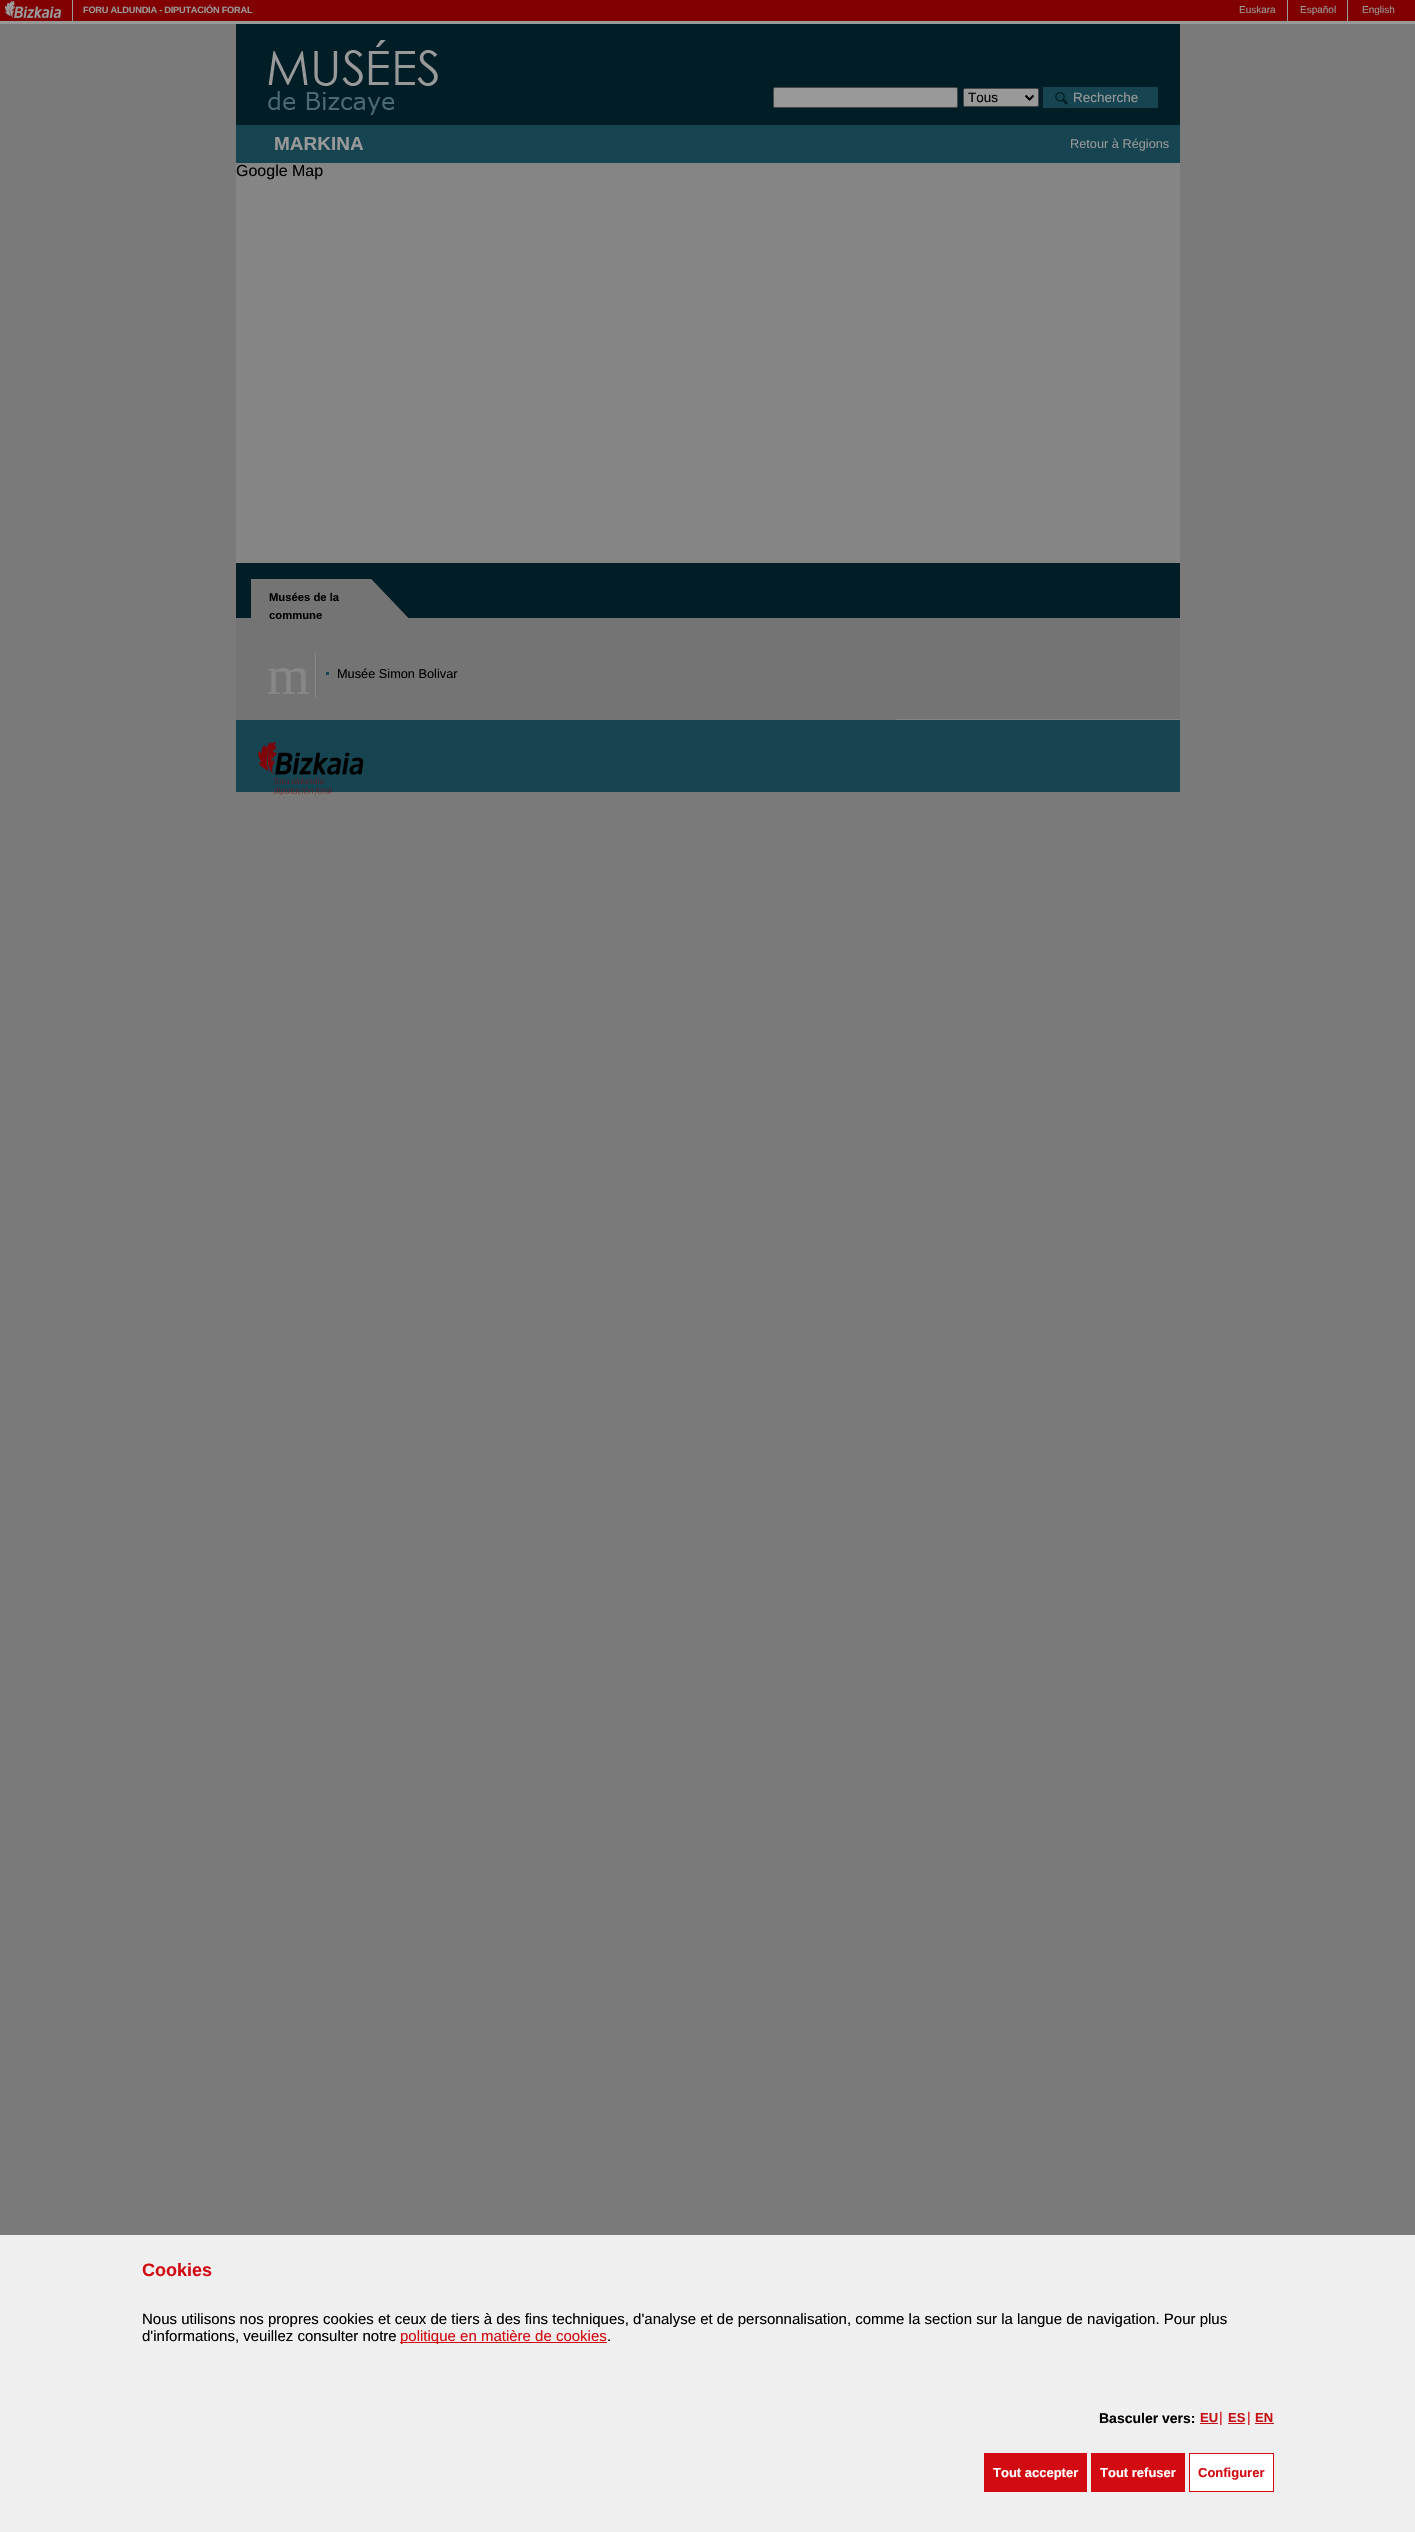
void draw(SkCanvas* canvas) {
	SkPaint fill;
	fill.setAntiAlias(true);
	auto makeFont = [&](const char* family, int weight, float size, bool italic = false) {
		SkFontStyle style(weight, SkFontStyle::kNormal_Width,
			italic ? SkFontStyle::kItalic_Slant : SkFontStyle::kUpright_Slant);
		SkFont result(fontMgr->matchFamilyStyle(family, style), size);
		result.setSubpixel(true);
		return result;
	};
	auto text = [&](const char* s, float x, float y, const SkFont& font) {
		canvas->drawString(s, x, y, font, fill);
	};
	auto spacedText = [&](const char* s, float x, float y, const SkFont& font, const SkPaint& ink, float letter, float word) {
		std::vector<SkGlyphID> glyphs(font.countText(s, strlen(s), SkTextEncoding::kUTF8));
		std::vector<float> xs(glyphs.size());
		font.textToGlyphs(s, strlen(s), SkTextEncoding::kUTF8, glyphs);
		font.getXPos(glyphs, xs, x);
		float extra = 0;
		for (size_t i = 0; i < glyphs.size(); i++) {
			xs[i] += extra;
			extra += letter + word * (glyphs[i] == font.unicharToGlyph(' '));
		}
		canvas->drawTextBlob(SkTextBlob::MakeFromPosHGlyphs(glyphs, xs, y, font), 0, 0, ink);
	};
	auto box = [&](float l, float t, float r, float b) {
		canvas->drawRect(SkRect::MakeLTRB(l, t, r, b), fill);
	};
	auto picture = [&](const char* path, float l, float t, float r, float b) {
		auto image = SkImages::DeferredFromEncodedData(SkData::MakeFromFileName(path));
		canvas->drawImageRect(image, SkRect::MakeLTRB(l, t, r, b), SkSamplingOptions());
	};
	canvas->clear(0xFF7A7A7A);
	fill.setColor(0xFF999999);
	box(0, 21, 1415, 24);
	fill.setColor(0xFF810002);
	box(0, 0, 1415, 21);
	picture("image0.png", 5, 1, 61, 18);
	fill.setColor(0xFF999999);
	box(72, 0, 73, 24);
	box(1287, 0, 1288, 21);
	box(1347, 0, 1348, 21);
	fill.setColor(0xFF011E26);
	box(236, 24, 1180, 125);
	picture("image1.png", 268, 40, 438, 115);
	fill.setColor(0xFF999999);
	canvas->drawRoundRect(SkRect::MakeLTRB(773.5f, 87.5f, 957.5f, 107.5f), 1.5f, 1.5f, fill);
	fill.setStyle(SkPaint::kStroke_Style);
	fill.setStrokeWidth(1);
	fill.setColor(0xFF474747);
	canvas->drawRoundRect(SkRect::MakeLTRB(773.5f, 87.5f, 957.5f, 107.5f), 1.5f, 1.5f, fill);
	fill.setStyle(SkPaint::kFill_Style);
	fill.setColor(0xFF999999);
	canvas->drawRoundRect(SkRect::MakeLTRB(963.5f, 88.5f, 1038.5f, 106.5f), 1.5f, 1.5f, fill);
	fill.setStyle(SkPaint::kStroke_Style);
	fill.setColor(0xFF474747);
	canvas->drawRoundRect(SkRect::MakeLTRB(963.5f, 88.5f, 1038.5f, 106.5f), 1.5f, 1.5f, fill);
	fill.setStrokeWidth(2);
	fill.setColor(0xFF000000);
	canvas->drawPath(SkPathBuilder().moveTo(1025.5f, 95.5f).lineTo(1029.5f, 99.5f).lineTo(1033.5f, 95.5f).detach(), fill);
	fill.setStyle(SkPaint::kFill_Style);
	fill.setColor(0xFF164450);
	box(1043, 87, 1158, 108);
	picture("image2.png", 1055, 92, 1068, 105);
	fill.setColor(0xFF858585);
	box(236, 163, 1180, 720);
	fill.setColor(0xFF164450);
	box(236, 125, 1180, 163);
	fill.setColor(0xFF011E26);
	box(236, 563, 1180, 618);
	fill.setColor(0xFF747474);
	box(236, 719, 896, 720);
	box(236, 618, 1180, 719);
	picture("image3.png", 371, 579, 409, 618);
	box(251, 579, 371, 618);
	fill.setColor(0xFF878787);
	box(315, 653, 316, 698);
	fill.setColor(0xFF164450);
	box(326, 672, 329, 675);
	box(236, 720, 1180, 792);
	picture("image4.png", 258, 741, 364, 796);
	fill.setColor(0xFFEFEFEF);
	box(0, 2235, 1415, 2532);
	fill.setColor(0xFFD20A11);
	box(400, 2342, 607, 2343);
	fill.setColor(0xFFC51015);
	box(1200, 2423, 1218, 2424);
	box(1228, 2423, 1245, 2424);
	box(1255, 2423, 1274, 2424);
	fill.setColor(0xFFD20A11);
	box(984, 2453, 1087, 2492);
	box(1091, 2453, 1185, 2492);
	fill.setColor(0xFFFFFFFF);
	canvas->drawRect(SkRect::MakeLTRB(1189.5f, 2453.5f, 1273.5f, 2491.5f), fill);
	fill.setStyle(SkPaint::kStroke_Style);
	fill.setStrokeWidth(1);
	fill.setColor(0xFFD20A11);
	canvas->drawRect(SkRect::MakeLTRB(1189.5f, 2453.5f, 1273.5f, 2491.5f), fill);
	auto font1 = makeFont("Liberation Sans", 700, 9.25f);
	fill.setStyle(SkPaint::kFill_Style);
	fill.setColor(0xFF999999);
	spacedText("FORU ALDUNDIA - DIPUTACIÓN FORAL", 83, 13, font1, fill, -0.25f, 0);
	auto font2 = makeFont("Liberation Sans", 400, 10);
	text("Euskara", 1239, 13, font2);
	text("Español", 1300, 13, font2);
	text("English", 1362, 13, font2);
	auto font3 = makeFont("Liberation Sans", 400, 13.5f);
	fill.setColor(0xFF000000);
	text("Tous", 968, 102, font3);
	fill.setColor(0xFF999999);
	text("Recherche", 1073, 102, font3);
	auto font4 = makeFont("Liberation Sans", 700, 19);
	text("MARKINA", 274, 150, font4);
	auto font5 = makeFont("Liberation Sans", 400, 12.75f);
	text("Retour à Régions", 1070, 148, font5);
	auto font6 = makeFont("Liberation Sans", 400, 16);
	fill.setColor(0xFF000000);
	text("Google Map", 236, 176, font6);
	auto font7 = makeFont("Liberation Sans", 700, 11.25f);
	text("Musées de la", 269, 601, font7);
	text("commune", 269, 619, font7);
	auto font8 = makeFont("Liberation Serif", 400, 55);
	fill.setColor(0xFF878787);
	text("m", 267, 694, font8);
	fill.setColor(0xFF000000);
	text("Musée Simon Bolivar", 337, 678, font5);
	auto font9 = makeFont("Liberation Sans", 700, 18);
	fill.setColor(0xFFD20A11);
	text("Cookies", 142, 2276, font9);
	auto font10 = makeFont("Liberation Sans", 400, 15);
	fill.setColor(0xFF000000);
	text("Nous utilisons nos propres cookies et ceux de tiers à des fins techniques, d'analyse et de personnalisation, comme la section sur la langue de navigation. Pour plus", 142, 2324, font10);
	text("d'informations, veuillez consulter notre", 142, 2341, font10);
	fill.setColor(0xFFD20A11);
	text("politique en matière de cookies", 400, 2341, font10);
	fill.setColor(0xFF000000);
	text(".", 607, 2341, font10);
	auto font11 = makeFont("Liberation Sans", 700, 14);
	text("Basculer vers:", 1099, 2423, font11);
	auto font12 = makeFont("Liberation Sans", 700, 13);
	fill.setColor(0xFFC51015);
	text("EU", 1200, 2422, font12);
	auto font13 = makeFont("Liberation Sans", 400, 14);
	fill.setColor(0xFFD20A11);
	text("|", 1219, 2422, font13);
	fill.setColor(0xFFC51015);
	text("ES", 1228, 2422, font12);
	fill.setColor(0xFFD20A11);
	text("|", 1247, 2422, font13);
	fill.setColor(0xFFC51015);
	text("EN", 1255, 2422, font12);
	fill.setColor(0xFFFFFFFF);
	text("Tout accepter", 993, 2477, font12);
	text("Tout refuser", 1100, 2477, font12);
	fill.setColor(0xFFD20A11);
	text("Configurer", 1198, 2477, font12);
}
